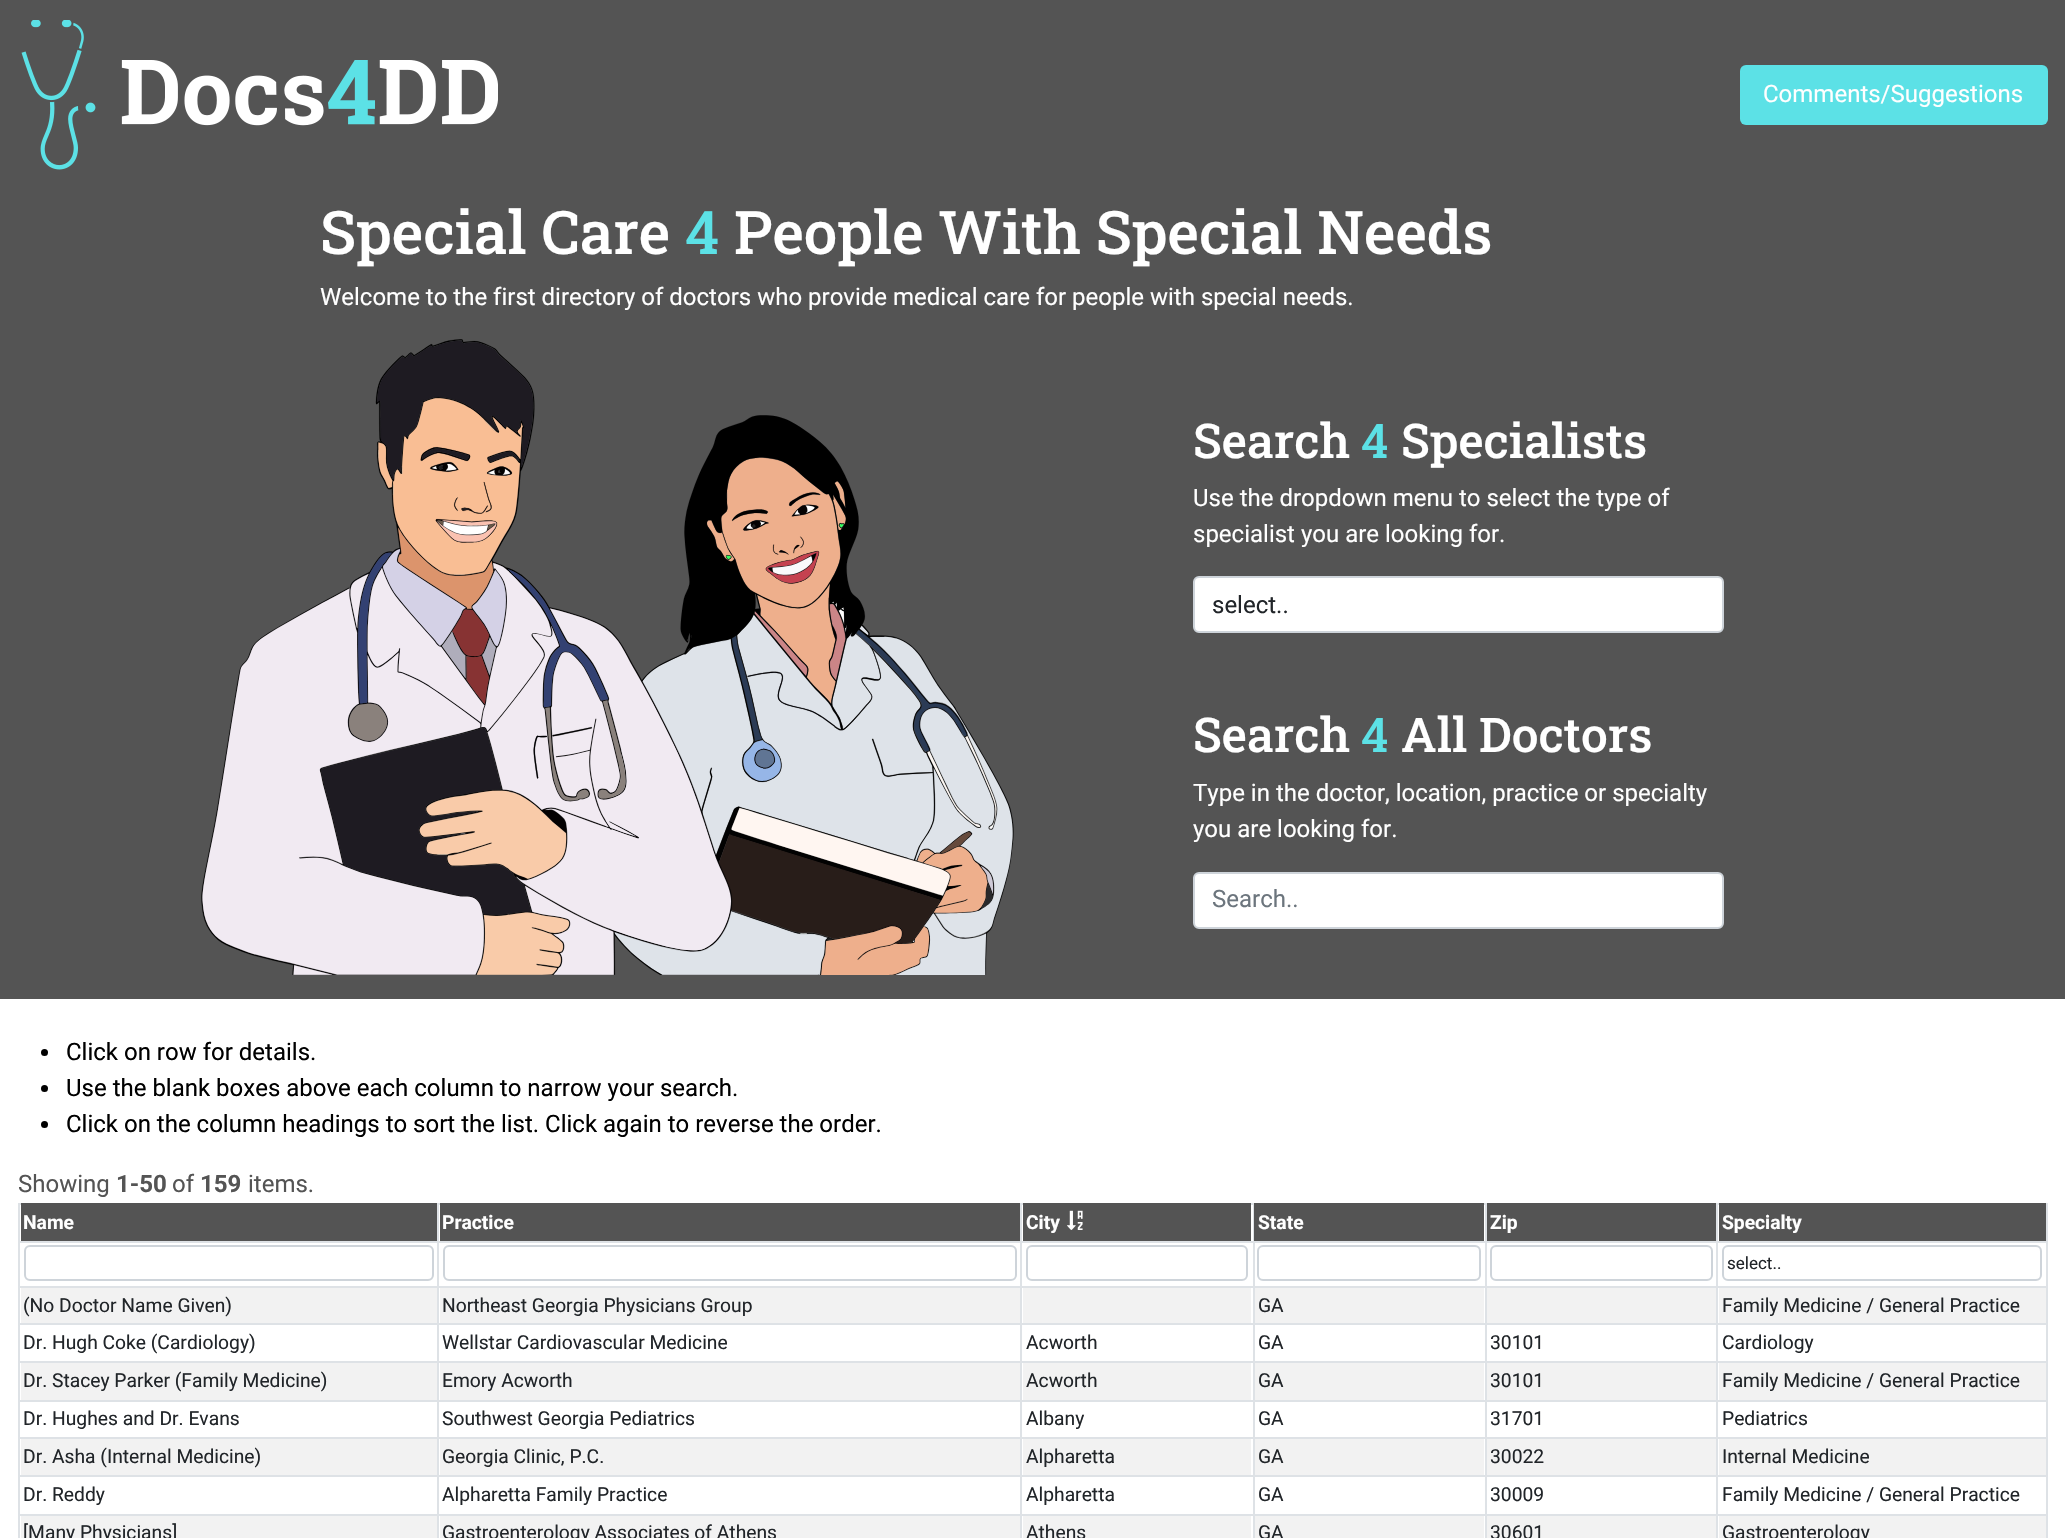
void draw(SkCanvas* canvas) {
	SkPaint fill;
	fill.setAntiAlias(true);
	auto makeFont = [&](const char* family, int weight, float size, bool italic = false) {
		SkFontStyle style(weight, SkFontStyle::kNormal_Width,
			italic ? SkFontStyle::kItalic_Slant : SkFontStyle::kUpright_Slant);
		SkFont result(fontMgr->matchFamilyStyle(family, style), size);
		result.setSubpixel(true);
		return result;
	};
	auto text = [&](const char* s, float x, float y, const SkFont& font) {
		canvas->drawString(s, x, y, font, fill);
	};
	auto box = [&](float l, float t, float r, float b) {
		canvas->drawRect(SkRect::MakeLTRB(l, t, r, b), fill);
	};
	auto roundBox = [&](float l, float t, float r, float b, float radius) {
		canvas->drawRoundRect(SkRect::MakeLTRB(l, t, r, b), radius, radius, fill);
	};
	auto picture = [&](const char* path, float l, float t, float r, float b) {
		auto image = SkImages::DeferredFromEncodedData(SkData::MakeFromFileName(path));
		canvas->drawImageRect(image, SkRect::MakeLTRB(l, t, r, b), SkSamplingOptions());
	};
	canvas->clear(0xFF545454);
	picture("image0.png", 21, 20, 498, 170);
	fill.setColor(0xFF5CE1E6);
	roundBox(1740, 65, 2048, 125, 6);
	picture("image1.png", 201, 339, 1014, 975);
	fill.setColor(0xFFFFFFFF);
	canvas->drawRoundRect(SkRect::MakeLTRB(1194, 577, 1723, 632), 5, 5, fill);
	fill.setStyle(SkPaint::kStroke_Style);
	fill.setStrokeWidth(2);
	fill.setColor(0xFFCED4DA);
	canvas->drawRoundRect(SkRect::MakeLTRB(1194, 577, 1723, 632), 5, 5, fill);
	fill.setStyle(SkPaint::kFill_Style);
	fill.setColor(0xFFFFFFFF);
	canvas->drawRoundRect(SkRect::MakeLTRB(1194, 873, 1723, 928), 5, 5, fill);
	fill.setStyle(SkPaint::kStroke_Style);
	fill.setColor(0xFFCED4DA);
	canvas->drawRoundRect(SkRect::MakeLTRB(1194, 873, 1723, 928), 5, 5, fill);
	fill.setStyle(SkPaint::kFill_Style);
	fill.setColor(0xFFFFFFFF);
	box(0, 999, 2065, 1538);
	fill.setColor(0xFF000000);
	canvas->drawCircle(44.5f, 1052.5f, 3.5f, fill);
	canvas->drawCircle(44.5f, 1088.5f, 3.5f, fill);
	canvas->drawCircle(44.5f, 1124.5f, 3.5f, fill);
	fill.setColor(0xFFDEE2E6);
	box(18, 1203, 1719, 1205);
	fill.setColor(0xFF545454);
	box(21, 1203, 437, 1241);
	box(440, 1203, 1020, 1241);
	box(1023, 1203, 1251, 1241);
	picture("image2.png", 1067, 1210, 1083, 1230);
	fill.setColor(0xFFDEE2E6);
	box(18, 1241, 2048, 1243);
	box(18, 1286, 2048, 1288);
	box(18, 1323, 2048, 1325);
	box(18, 1361, 2048, 1363);
	box(18, 1400, 2048, 1402);
	box(18, 1437, 2048, 1439);
	box(18, 1475, 2048, 1477);
	box(18, 1514, 2048, 1516);
	box(1253, 1203, 1255, 1538);
	fill.setColor(0xFF545454);
	box(1254, 1203, 1484, 1241);
	box(1487, 1203, 1716, 1241);
	box(1719, 1203, 2046, 1241);
	fill.setStyle(SkPaint::kStroke_Style);
	fill.setColor(0xFFCED4DA);
	canvas->drawRoundRect(SkRect::MakeLTRB(25, 1246, 433, 1280), 5, 5, fill);
	canvas->drawRoundRect(SkRect::MakeLTRB(444, 1246, 1016, 1280), 5, 5, fill);
	canvas->drawRoundRect(SkRect::MakeLTRB(1027, 1246, 1247, 1280), 5, 5, fill);
	canvas->drawRoundRect(SkRect::MakeLTRB(1258, 1246, 1480, 1280), 5, 5, fill);
	canvas->drawRoundRect(SkRect::MakeLTRB(1491, 1246, 1712, 1280), 5, 5, fill);
	canvas->drawRoundRect(SkRect::MakeLTRB(1723, 1246, 2041, 1280), 5, 5, fill);
	fill.setStyle(SkPaint::kFill_Style);
	fill.setColor(0xFFF2F2F2);
	box(21, 1288, 437, 1323);
	box(440, 1288, 1020, 1323);
	box(1023, 1288, 1251, 1323);
	box(1255, 1288, 1484, 1323);
	box(1487, 1288, 1716, 1323);
	box(1719, 1288, 2046, 1323);
	box(21, 1363, 437, 1400);
	box(440, 1363, 1020, 1400);
	box(1023, 1363, 1251, 1400);
	box(1255, 1363, 1484, 1400);
	box(1487, 1363, 1716, 1400);
	box(1719, 1363, 2046, 1400);
	box(21, 1439, 437, 1475);
	box(440, 1439, 1020, 1475);
	box(1023, 1439, 1251, 1475);
	box(1255, 1439, 1484, 1475);
	box(1487, 1439, 1716, 1475);
	box(1719, 1439, 2046, 1475);
	box(21, 1516, 437, 1538);
	fill.setColor(0xFFDEE2E6);
	box(18, 1203, 20, 1538);
	fill.setColor(0xFFF2F2F2);
	box(440, 1516, 1020, 1538);
	fill.setColor(0xFFDEE2E6);
	box(437, 1203, 439, 1538);
	fill.setColor(0xFFF2F2F2);
	box(1023, 1516, 1251, 1538);
	fill.setColor(0xFFDEE2E6);
	box(1020, 1203, 1022, 1538);
	fill.setColor(0xFFF2F2F2);
	box(1255, 1516, 1484, 1538);
	box(1487, 1516, 1716, 1538);
	fill.setColor(0xFFDEE2E6);
	box(1485, 1203, 1487, 1538);
	fill.setColor(0xFFF2F2F2);
	box(1719, 1516, 2046, 1538);
	fill.setColor(0xFFDEE2E6);
	box(2046, 1203, 2048, 1538);
	box(1716, 1203, 1718, 1538);
	auto font1 = makeFont("Roboto", 400, 24);
	fill.setColor(0xFFFFFFFF);
	text("Comments/Suggestions", 1763, 102, font1);
	auto font2 = makeFont("Roboto Slab", 500, 60);
	text("Special Care", 320, 254, font2);
	fill.setColor(0xFF5CE1E6);
	text("4", 685, 254, font2);
	fill.setColor(0xFFFFFFFF);
	text("People With Special Needs", 734, 254, font2);
	text("Welcome to the first directory of doctors who provide medical care for people with special needs.", 320, 305, font1);
	auto font3 = makeFont("Roboto Slab", 500, 48);
	text("Search", 1193, 458, font3);
	fill.setColor(0xFF5CE1E6);
	text("4", 1361, 458, font3);
	fill.setColor(0xFFFFFFFF);
	text("Specialists", 1401, 458, font3);
	text("Use the dropdown menu to select the type of", 1193, 506, font1);
	text("specialist you are looking for.", 1193, 542, font1);
	fill.setColor(0xFF212529);
	text("select..", 1212, 613, font1);
	fill.setColor(0xFFFFFFFF);
	text("Search", 1193, 752, font3);
	fill.setColor(0xFF5CE1E6);
	text("4", 1361, 752, font3);
	fill.setColor(0xFFFFFFFF);
	text("All Doctors", 1401, 752, font3);
	text("Type in the doctor, location, practice or specialty", 1193, 801, font1);
	text("you are looking for.", 1193, 837, font1);
	fill.setColor(0xFF6C757D);
	text("Search..", 1212, 907, font1);
	fill.setColor(0xFF000000);
	text("Click on row for details.", 66, 1060, font1);
	text("Use the blank boxes above each column to narrow your search.", 66, 1096, font1);
	text("Click on the column headings to sort the list. Click again to reverse the order.", 66, 1132, font1);
	fill.setColor(0xFF545454);
	text("Showing", 18, 1192, font1);
	auto font4 = makeFont("Roboto", 700, 24);
	text("1-50", 116, 1192, font4);
	text("of", 172, 1192, font1);
	text("159", 200, 1192, font4);
	text("items.", 248, 1192, font1);
	auto font5 = makeFont("Roboto", 700, 19.25f);
	fill.setColor(0xFFFFFFFF);
	text("Name", 23, 1229, font5);
	text("Practice", 442, 1229, font5);
	text("City", 1026, 1229, font5);
	text("State", 1258, 1229, font5);
	text("Zip", 1490, 1229, font5);
	text("Specialty", 1722, 1229, font5);
	auto font6 = makeFont("Roboto", 400, 17);
	fill.setColor(0xFF212529);
	text("select..", 1727, 1269, font6);
	auto font7 = makeFont("Roboto", 400, 19.25f);
	text("(No Doctor Name Given)", 23, 1312, font7);
	text("Northeast Georgia Physicians Group", 442, 1312, font7);
	text("GA", 1258, 1312, font7);
	text("Family Medicine / General Practice", 1722, 1312, font7);
	text("Dr. Hugh Coke (Cardiology)", 23, 1349, font7);
	text("Wellstar Cardiovascular Medicine", 442, 1349, font7);
	text("Acworth", 1026, 1349, font7);
	text("GA", 1258, 1349, font7);
	text("30101", 1490, 1349, font7);
	text("Cardiology", 1722, 1349, font7);
	text("Dr. Stacey Parker (Family Medicine)", 23, 1387, font7);
	text("Emory Acworth", 442, 1387, font7);
	text("Acworth", 1026, 1387, font7);
	text("GA", 1258, 1387, font7);
	text("30101", 1490, 1387, font7);
	text("Family Medicine / General Practice", 1722, 1387, font7);
	text("Dr. Hughes and Dr. Evans", 23, 1425, font7);
	text("Southwest Georgia Pediatrics", 442, 1425, font7);
	text("Albany", 1026, 1425, font7);
	text("GA", 1258, 1425, font7);
	text("31701", 1490, 1425, font7);
	text("Pediatrics", 1722, 1425, font7);
	text("Dr. Asha (Internal Medicine)", 23, 1463, font7);
	text("Georgia Clinic, P.C.", 442, 1463, font7);
	text("Alpharetta", 1026, 1463, font7);
	text("GA", 1258, 1463, font7);
	text("30022", 1490, 1463, font7);
	text("Internal Medicine", 1722, 1463, font7);
	text("Dr. Reddy", 23, 1501, font7);
	text("Alpharetta Family Practice", 442, 1501, font7);
	text("Alpharetta", 1026, 1501, font7);
	text("GA", 1258, 1501, font7);
	text("30009", 1490, 1501, font7);
	text("Family Medicine / General Practice", 1722, 1501, font7);
	text("[Many Physicians]", 23, 1539, font7);
	text("Gastroenterology Associates of Athens", 442, 1539, font7);
	text("Athens", 1026, 1539, font7);
	text("GA", 1258, 1539, font7);
	text("30601", 1490, 1539, font7);
	text("Gastroenterology", 1722, 1539, font7);
}
